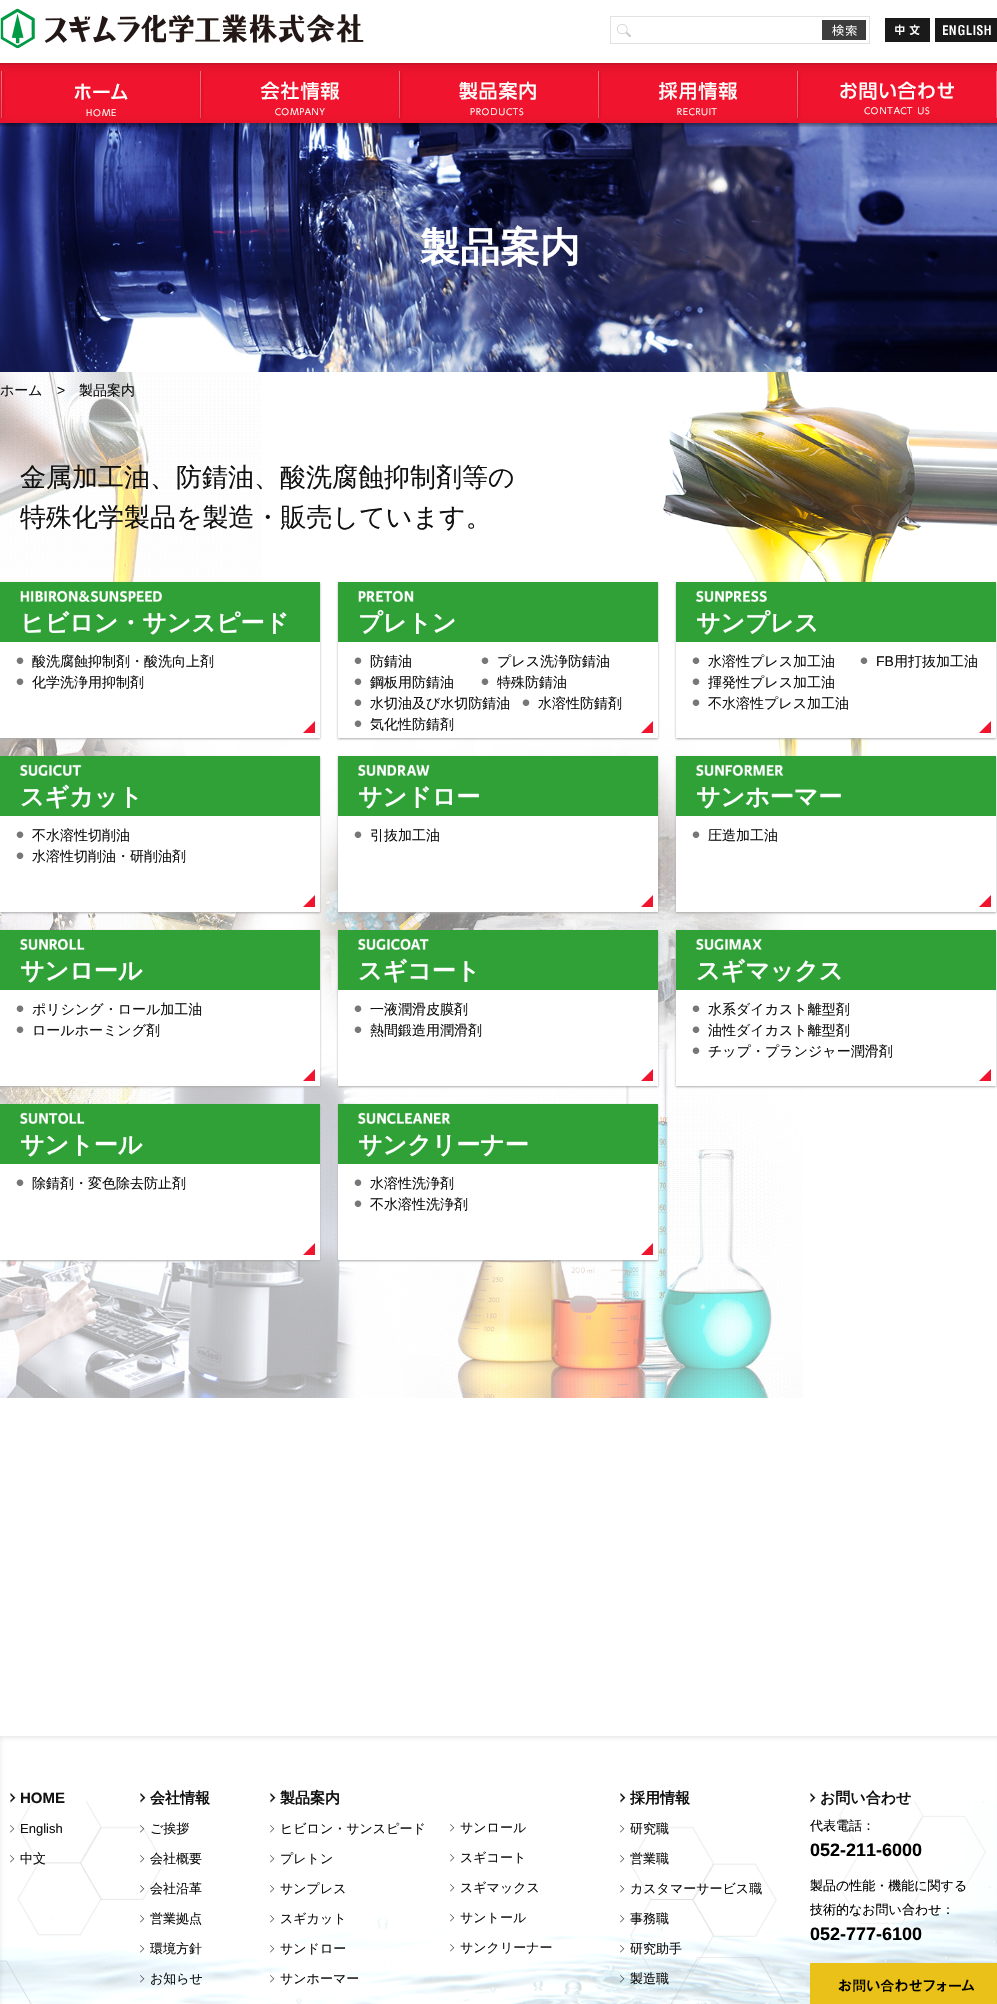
void draw(SkCanvas* canvas) {
	SkPaint fill;
	fill.setAntiAlias(true);
	auto makeFont = [&](const char* family, int weight, float size, bool italic = false) {
		SkFontStyle style(weight, SkFontStyle::kNormal_Width,
			italic ? SkFontStyle::kItalic_Slant : SkFontStyle::kUpright_Slant);
		SkFont result(fontMgr->matchFamilyStyle(family, style), size);
		result.setSubpixel(true);
		return result;
	};
	auto text = [&](const char* s, float x, float y, const SkFont& font) {
		canvas->drawString(s, x, y, font, fill);
	};
	auto box = [&](float l, float t, float r, float b) {
		canvas->drawRect(SkRect::MakeLTRB(l, t, r, b), fill);
	};
	auto picture = [&](const char* path, float l, float t, float r, float b) {
		auto image = SkImages::DeferredFromEncodedData(SkData::MakeFromFileName(path));
		canvas->drawImageRect(image, SkRect::MakeLTRB(l, t, r, b), SkSamplingOptions());
	};
	canvas->clear(0xFFFFFFFF);
	picture("image0.png", 0, 8, 364, 49);
	picture("image1.png", 617, 24, 631, 37);
	fill.setStyle(SkPaint::kStroke_Style);
	fill.setStrokeWidth(1);
	fill.setColor(0xFFE2E2E2);
	canvas->drawRect(SkRect::MakeLTRB(610.5f, 16.5f, 869.5f, 43.5f), fill);
	picture("image2.png", 822, 20, 866, 40);
	picture("image3.png", 885, 18, 930, 42);
	picture("image4.png", 935, 18, 997, 42);
	picture("image13.png", 0, 123, 997, 372);
	picture("image5.png", 0, 63, 997, 127);
	picture("image6.png", 995, 71, 997, 119);
	picture("image7.png", 0, 71, 5, 120);
	picture("image8.png", 74, 83, 128, 117);
	picture("image7.png", 199, 71, 204, 120);
	picture("image9.png", 260, 81, 340, 116);
	picture("image7.png", 398, 71, 403, 120);
	picture("image10.png", 459, 81, 536, 116);
	picture("image7.png", 597, 71, 602, 120);
	picture("image11.png", 659, 82, 738, 116);
	picture("image7.png", 796, 71, 801, 120);
	picture("image12.png", 840, 81, 954, 115);
	picture("image14.png", 0, 372, 803, 1398);
	picture("image15.png", 662, 372, 997, 756);
	fill.setStyle(SkPaint::kFill_Style);
	fill.setColor(0xFFAAAAAA);
	fill.setMaskFilter(SkMaskFilter::MakeBlur(kNormal_SkBlurStyle, 1));
	canvas->drawRect(SkRect::MakeLTRB(0, 583, 320, 739), fill);
	fill.setMaskFilter(nullptr);
	fill.setColor(0xFFFFFFFF);
	box(0, 642, 320, 738);
	picture("image16.png", 303, 721, 315, 733);
	fill.setColor(0xFF2FA137);
	box(0, 582, 320, 642);
	picture("image17.png", 20, 590, 162, 602);
	picture("image18.png", 16, 657, 24, 664);
	picture("image18.png", 16, 678, 24, 685);
	fill.setColor(0xFFAAAAAA);
	fill.setMaskFilter(SkMaskFilter::MakeBlur(kNormal_SkBlurStyle, 1));
	canvas->drawRect(SkRect::MakeLTRB(338, 583, 658, 739), fill);
	fill.setMaskFilter(nullptr);
	fill.setColor(0xFFFFFFFF);
	box(338, 642, 658, 738);
	picture("image16.png", 641, 721, 653, 733);
	fill.setColor(0xFF2FA137);
	box(338, 582, 658, 642);
	picture("image19.png", 358, 590, 414, 602);
	picture("image18.png", 354, 657, 362, 664);
	picture("image18.png", 481, 657, 489, 664);
	picture("image18.png", 354, 678, 362, 685);
	picture("image18.png", 481, 678, 489, 685);
	picture("image18.png", 354, 699, 362, 706);
	picture("image18.png", 522, 699, 530, 706);
	picture("image18.png", 354, 720, 362, 727);
	fill.setColor(0xFFAAAAAA);
	fill.setMaskFilter(SkMaskFilter::MakeBlur(kNormal_SkBlurStyle, 1));
	canvas->drawRect(SkRect::MakeLTRB(676, 583, 996, 739), fill);
	fill.setMaskFilter(nullptr);
	fill.setColor(0xFFFFFFFF);
	box(676, 642, 996, 738);
	picture("image16.png", 979, 721, 991, 733);
	fill.setColor(0xFF2FA137);
	box(676, 582, 996, 642);
	picture("image20.png", 696, 590, 767, 602);
	picture("image18.png", 692, 657, 700, 664);
	picture("image18.png", 860, 657, 868, 664);
	picture("image18.png", 692, 678, 700, 685);
	picture("image18.png", 692, 699, 700, 706);
	fill.setColor(0xFFAAAAAA);
	fill.setMaskFilter(SkMaskFilter::MakeBlur(kNormal_SkBlurStyle, 1));
	canvas->drawRect(SkRect::MakeLTRB(0, 757, 320, 913), fill);
	fill.setMaskFilter(nullptr);
	fill.setColor(0xFFFFFFFF);
	box(0, 816, 320, 912);
	picture("image16.png", 303, 895, 315, 907);
	fill.setColor(0xFF2FA137);
	box(0, 756, 320, 816);
	picture("image21.png", 20, 764, 82, 776);
	picture("image18.png", 16, 831, 24, 838);
	picture("image18.png", 16, 852, 24, 859);
	fill.setColor(0xFFAAAAAA);
	fill.setMaskFilter(SkMaskFilter::MakeBlur(kNormal_SkBlurStyle, 1));
	canvas->drawRect(SkRect::MakeLTRB(338, 757, 658, 913), fill);
	fill.setMaskFilter(nullptr);
	fill.setColor(0xFFFFFFFF);
	box(338, 816, 658, 912);
	picture("image16.png", 641, 895, 653, 907);
	fill.setColor(0xFF2FA137);
	box(338, 756, 658, 816);
	picture("image22.png", 358, 764, 430, 776);
	picture("image18.png", 354, 831, 362, 838);
	fill.setColor(0xFFAAAAAA);
	fill.setMaskFilter(SkMaskFilter::MakeBlur(kNormal_SkBlurStyle, 1));
	canvas->drawRect(SkRect::MakeLTRB(676, 757, 996, 913), fill);
	fill.setMaskFilter(nullptr);
	fill.setColor(0xFFFFFFFF);
	box(676, 816, 996, 912);
	picture("image16.png", 979, 895, 991, 907);
	fill.setColor(0xFF2FA137);
	box(676, 756, 996, 816);
	picture("image23.png", 696, 764, 784, 776);
	picture("image18.png", 692, 831, 700, 838);
	fill.setColor(0xFFAAAAAA);
	fill.setMaskFilter(SkMaskFilter::MakeBlur(kNormal_SkBlurStyle, 1));
	canvas->drawRect(SkRect::MakeLTRB(0, 931, 320, 1087), fill);
	fill.setMaskFilter(nullptr);
	fill.setColor(0xFFFFFFFF);
	box(0, 990, 320, 1086);
	picture("image16.png", 303, 1069, 315, 1081);
	fill.setColor(0xFF2FA137);
	box(0, 930, 320, 990);
	picture("image24.png", 20, 938, 85, 950);
	picture("image18.png", 16, 1005, 24, 1012);
	picture("image18.png", 16, 1026, 24, 1033);
	fill.setColor(0xFFAAAAAA);
	fill.setMaskFilter(SkMaskFilter::MakeBlur(kNormal_SkBlurStyle, 1));
	canvas->drawRect(SkRect::MakeLTRB(338, 931, 658, 1087), fill);
	fill.setMaskFilter(nullptr);
	fill.setColor(0xFFFFFFFF);
	box(338, 990, 658, 1086);
	picture("image16.png", 641, 1069, 653, 1081);
	fill.setColor(0xFF2FA137);
	box(338, 930, 658, 990);
	picture("image25.png", 358, 938, 429, 950);
	picture("image18.png", 354, 1005, 362, 1012);
	picture("image18.png", 354, 1026, 362, 1033);
	fill.setColor(0xFFAAAAAA);
	fill.setMaskFilter(SkMaskFilter::MakeBlur(kNormal_SkBlurStyle, 1));
	canvas->drawRect(SkRect::MakeLTRB(676, 931, 996, 1087), fill);
	fill.setMaskFilter(nullptr);
	fill.setColor(0xFFFFFFFF);
	box(676, 990, 996, 1086);
	picture("image16.png", 979, 1069, 991, 1081);
	fill.setColor(0xFF2FA137);
	box(676, 930, 996, 990);
	picture("image26.png", 696, 938, 762, 950);
	picture("image18.png", 692, 1005, 700, 1012);
	picture("image18.png", 692, 1026, 700, 1033);
	picture("image18.png", 692, 1047, 700, 1054);
	fill.setColor(0xFFAAAAAA);
	fill.setMaskFilter(SkMaskFilter::MakeBlur(kNormal_SkBlurStyle, 1));
	canvas->drawRect(SkRect::MakeLTRB(0, 1105, 320, 1261), fill);
	fill.setMaskFilter(nullptr);
	fill.setColor(0xFFFFFFFF);
	box(0, 1164, 320, 1260);
	picture("image16.png", 303, 1243, 315, 1255);
	fill.setColor(0xFF2FA137);
	box(0, 1104, 320, 1164);
	picture("image27.png", 20, 1112, 85, 1124);
	picture("image18.png", 16, 1179, 24, 1186);
	fill.setColor(0xFFAAAAAA);
	fill.setMaskFilter(SkMaskFilter::MakeBlur(kNormal_SkBlurStyle, 1));
	canvas->drawRect(SkRect::MakeLTRB(338, 1105, 658, 1261), fill);
	fill.setMaskFilter(nullptr);
	fill.setColor(0xFFFFFFFF);
	box(338, 1164, 658, 1260);
	picture("image16.png", 641, 1243, 653, 1255);
	fill.setColor(0xFF2FA137);
	box(338, 1104, 658, 1164);
	picture("image28.png", 358, 1112, 451, 1124);
	picture("image18.png", 354, 1179, 362, 1186);
	picture("image18.png", 354, 1200, 362, 1207);
	picture("image29.png", 0, 1801, 997, 2004);
	picture("image30.png", 0, 1736, 997, 2004);
	picture("image31.png", 10, 1793, 16, 1803);
	picture("image32.png", 10, 1825, 15, 1833);
	picture("image32.png", 10, 1855, 15, 1863);
	picture("image31.png", 140, 1793, 146, 1803);
	picture("image33.png", 140, 1825, 145, 1833);
	picture("image32.png", 140, 1855, 145, 1863);
	picture("image32.png", 140, 1885, 145, 1893);
	picture("image32.png", 140, 1915, 145, 1923);
	picture("image34.png", 140, 1945, 145, 1953);
	picture("image35.png", 140, 1975, 145, 1983);
	picture("image31.png", 270, 1793, 276, 1803);
	picture("image32.png", 270, 1825, 275, 1833);
	picture("image32.png", 270, 1855, 275, 1863);
	picture("image32.png", 270, 1885, 275, 1893);
	picture("image32.png", 270, 1915, 275, 1923);
	picture("image32.png", 270, 1945, 275, 1953);
	picture("image32.png", 270, 1975, 275, 1983);
	picture("image32.png", 450, 1824, 455, 1832);
	picture("image32.png", 450, 1854, 455, 1862);
	picture("image32.png", 450, 1884, 455, 1892);
	picture("image32.png", 450, 1914, 455, 1922);
	picture("image32.png", 450, 1944, 455, 1952);
	picture("image31.png", 620, 1793, 626, 1803);
	picture("image32.png", 620, 1825, 625, 1833);
	picture("image32.png", 620, 1855, 625, 1863);
	picture("image32.png", 620, 1885, 625, 1893);
	picture("image32.png", 620, 1915, 625, 1923);
	picture("image36.png", 620, 1945, 625, 1953);
	picture("image37.png", 620, 1975, 625, 1983);
	picture("image31.png", 810, 1793, 816, 1803);
	picture("image38.png", 810, 1963, 997, 2004);
	picture("image39.png", 0, 1960, 32, 2004);
	picture("image40.png", 671, 1957, 786, 2004);
	auto font1 = makeFont("WenQuanYi Zen Hei", 700, 40);
	fill.setColor(0xFFFFFFFF);
	text("製品案内", 420, 261, font1);
	auto font2 = makeFont("WenQuanYi Zen Hei", 500, 14);
	fill.setColor(0xFF111111);
	text("ホーム", 0, 395, font2);
	auto font3 = makeFont("Liberation Sans", 400, 14);
	text(">", 57, 395, font3);
	text("製品案内", 79, 395, font2);
	auto font4 = makeFont("WenQuanYi Zen Hei", 500, 26);
	text("金属加工油、防錆油、酸洗腐蝕抑制剤等の", 20, 486, font4);
	text("特殊化学製品を製造・販売しています。", 20, 526, font4);
	auto font5 = makeFont("WenQuanYi Zen Hei", 700, 24);
	fill.setColor(0xFFFFFFFF);
	text("ヒビロン・サンスピード", 20, 631, font5);
	fill.setColor(0xFF111111);
	text("酸洗腐蝕抑制剤・酸洗向上剤", 32, 666, font2);
	text("化学洗浄用抑制剤", 32, 687, font2);
	fill.setColor(0xFFFFFFFF);
	text("プレトン", 358, 631, font5);
	fill.setColor(0xFF111111);
	text("防錆油", 370, 666, font2);
	text("プレス洗浄防錆油", 497, 666, font2);
	text("鋼板用防錆油", 370, 687, font2);
	text("特殊防錆油", 497, 687, font2);
	text("水切油及び水切防錆油", 370, 708, font2);
	text("水溶性防錆剤", 538, 708, font2);
	text("気化性防錆剤", 370, 729, font2);
	fill.setColor(0xFFFFFFFF);
	text("サンプレス", 696, 631, font5);
	fill.setColor(0xFF111111);
	text("水溶性プレス加工油", 708, 666, font2);
	text("FB", 876, 666, font3);
	text("用打抜加工油", 894, 666, font2);
	text("揮発性プレス加工油", 708, 687, font2);
	text("不水溶性プレス加工油", 708, 708, font2);
	fill.setColor(0xFFFFFFFF);
	text("スギカット", 20, 805, font5);
	fill.setColor(0xFF111111);
	text("不水溶性切削油", 32, 840, font2);
	text("水溶性切削油・研削油剤", 32, 861, font2);
	fill.setColor(0xFFFFFFFF);
	text("サンドロー", 358, 805, font5);
	fill.setColor(0xFF111111);
	text("引抜加工油", 370, 840, font2);
	fill.setColor(0xFFFFFFFF);
	text("サンホーマー", 696, 805, font5);
	fill.setColor(0xFF111111);
	text("圧造加工油", 708, 840, font2);
	fill.setColor(0xFFFFFFFF);
	text("サンロール", 20, 979, font5);
	fill.setColor(0xFF111111);
	text("ポリシング・ロール加工油", 32, 1014, font2);
	text("ロールホーミング剤", 32, 1035, font2);
	fill.setColor(0xFFFFFFFF);
	text("スギコート", 358, 979, font5);
	fill.setColor(0xFF111111);
	text("一液潤滑皮膜剤", 370, 1014, font2);
	text("熱間鍛造用潤滑剤", 370, 1035, font2);
	fill.setColor(0xFFFFFFFF);
	text("スギマックス", 696, 979, font5);
	fill.setColor(0xFF111111);
	text("水系ダイカスト離型剤", 708, 1014, font2);
	text("油性ダイカスト離型剤", 708, 1035, font2);
	text("チップ・プランジャー潤滑剤", 708, 1056, font2);
	fill.setColor(0xFFFFFFFF);
	text("サントール", 20, 1153, font5);
	fill.setColor(0xFF111111);
	text("除錆剤・変色除去防止剤", 32, 1188, font2);
	fill.setColor(0xFFFFFFFF);
	text("サンクリーナー", 358, 1153, font5);
	fill.setColor(0xFF111111);
	text("水溶性洗浄剤", 370, 1188, font2);
	text("不水溶性洗浄剤", 370, 1209, font2);
	auto font6 = makeFont("Liberation Sans", 700, 15);
	text("HOME", 20, 1803, font6);
	auto font7 = makeFont("Liberation Sans", 400, 13);
	text("English", 20, 1833, font7);
	auto font8 = makeFont("WenQuanYi Zen Hei", 500, 13);
	text("中文", 20, 1863, font8);
	auto font9 = makeFont("WenQuanYi Zen Hei", 700, 15);
	text("会社情報", 150, 1803, font9);
	text("ご挨拶", 150, 1833, font8);
	text("会社概要", 150, 1863, font8);
	text("会社沿革", 150, 1893, font8);
	text("営業拠点", 150, 1923, font8);
	text("環境方針", 150, 1953, font8);
	text("お知らせ", 150, 1983, font8);
	text("製品案内", 280, 1803, font9);
	text("ヒビロン・サンスピード", 280, 1833, font8);
	text("プレトン", 280, 1863, font8);
	text("サンプレス", 280, 1893, font8);
	text("スギカット", 280, 1923, font8);
	text("サンドロー", 280, 1953, font8);
	text("サンホーマー", 280, 1983, font8);
	text("サンロール", 460, 1832, font8);
	text("スギコート", 460, 1862, font8);
	text("スギマックス", 460, 1892, font8);
	text("サントール", 460, 1922, font8);
	text("サンクリーナー", 460, 1952, font8);
	text("採用情報", 630, 1803, font9);
	text("研究職", 630, 1833, font8);
	text("営業職", 630, 1863, font8);
	text("カスタマーサービス職", 630, 1893, font8);
	text("事務職", 630, 1923, font8);
	text("研究助手", 630, 1953, font8);
	text("製造職", 630, 1983, font8);
	text("お問い合わせ", 820, 1803, font9);
	fill.setColor(0xFF000000);
	text("代表電話：", 810, 1830, font8);
	auto font10 = makeFont("Liberation Sans", 700, 18);
	text("052-211-6000", 810, 1856, font10);
	text("製品の性能・機能に関する", 810, 1890, font8);
	text("技術的なお問い合わせ：", 810, 1914, font8);
	text("052-777-6100", 810, 1940, font10);
}
